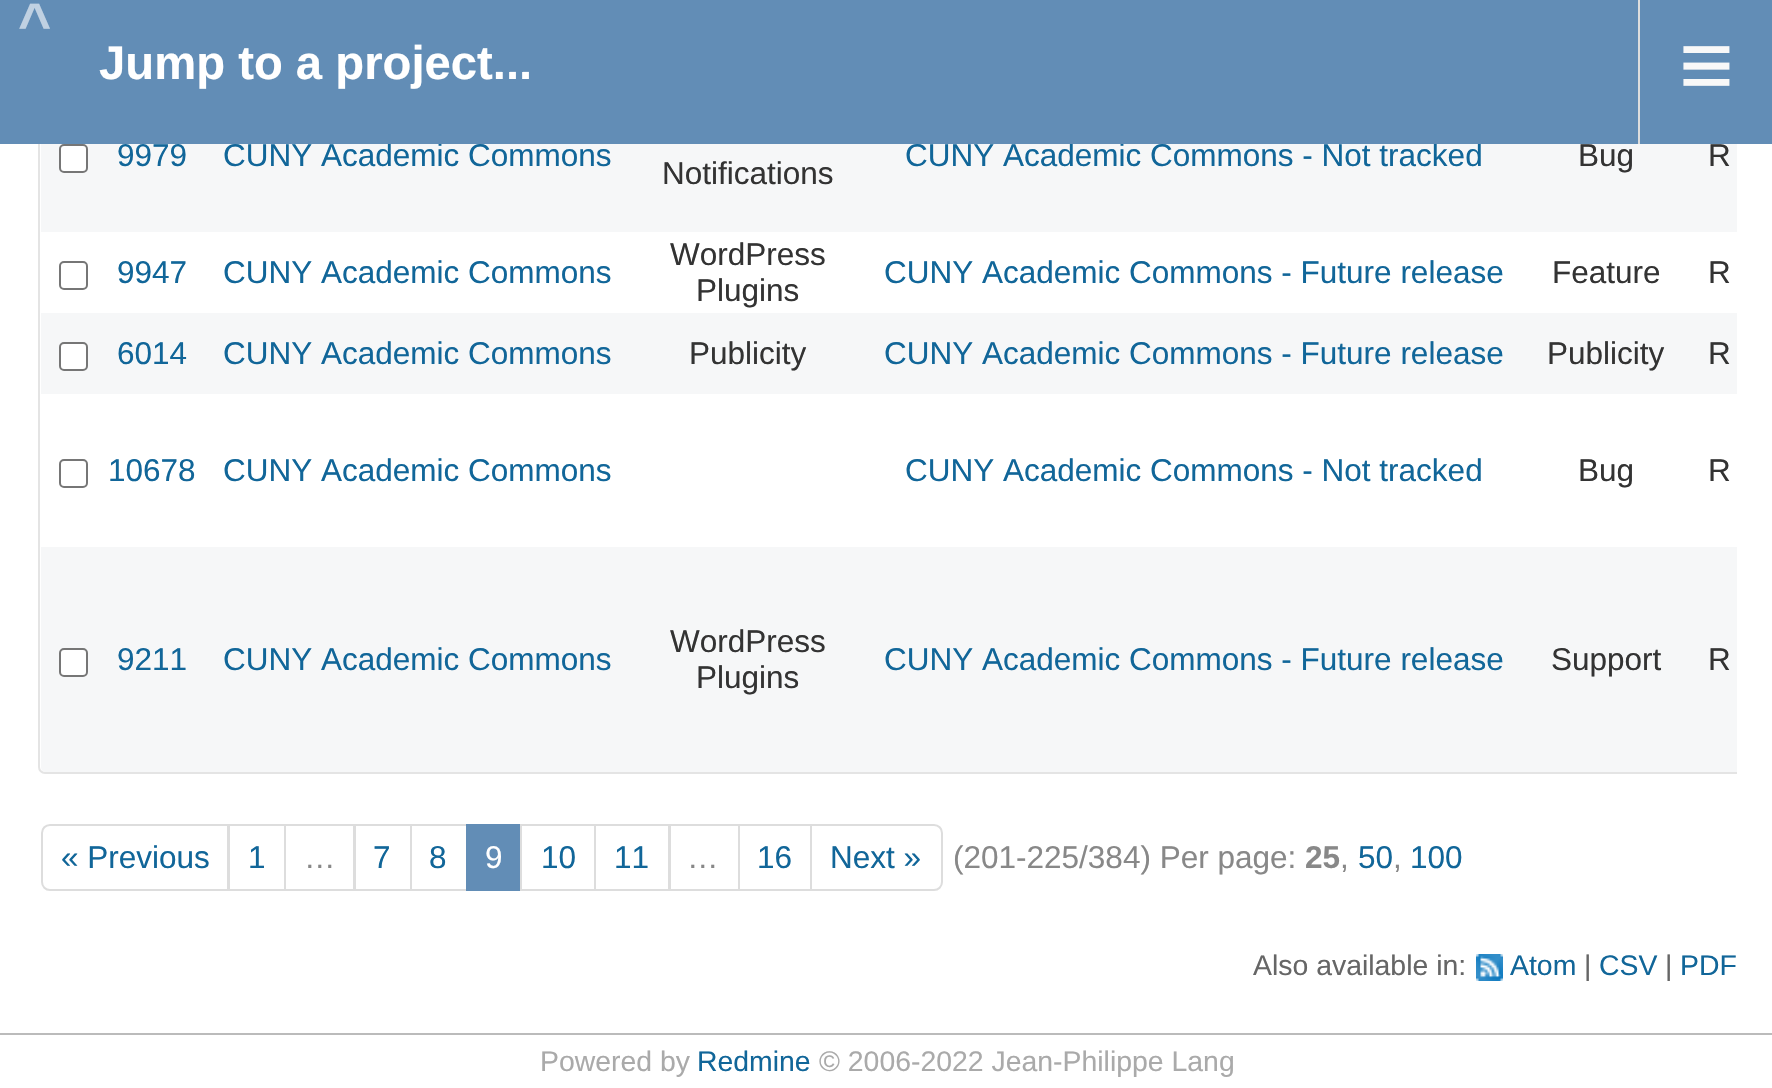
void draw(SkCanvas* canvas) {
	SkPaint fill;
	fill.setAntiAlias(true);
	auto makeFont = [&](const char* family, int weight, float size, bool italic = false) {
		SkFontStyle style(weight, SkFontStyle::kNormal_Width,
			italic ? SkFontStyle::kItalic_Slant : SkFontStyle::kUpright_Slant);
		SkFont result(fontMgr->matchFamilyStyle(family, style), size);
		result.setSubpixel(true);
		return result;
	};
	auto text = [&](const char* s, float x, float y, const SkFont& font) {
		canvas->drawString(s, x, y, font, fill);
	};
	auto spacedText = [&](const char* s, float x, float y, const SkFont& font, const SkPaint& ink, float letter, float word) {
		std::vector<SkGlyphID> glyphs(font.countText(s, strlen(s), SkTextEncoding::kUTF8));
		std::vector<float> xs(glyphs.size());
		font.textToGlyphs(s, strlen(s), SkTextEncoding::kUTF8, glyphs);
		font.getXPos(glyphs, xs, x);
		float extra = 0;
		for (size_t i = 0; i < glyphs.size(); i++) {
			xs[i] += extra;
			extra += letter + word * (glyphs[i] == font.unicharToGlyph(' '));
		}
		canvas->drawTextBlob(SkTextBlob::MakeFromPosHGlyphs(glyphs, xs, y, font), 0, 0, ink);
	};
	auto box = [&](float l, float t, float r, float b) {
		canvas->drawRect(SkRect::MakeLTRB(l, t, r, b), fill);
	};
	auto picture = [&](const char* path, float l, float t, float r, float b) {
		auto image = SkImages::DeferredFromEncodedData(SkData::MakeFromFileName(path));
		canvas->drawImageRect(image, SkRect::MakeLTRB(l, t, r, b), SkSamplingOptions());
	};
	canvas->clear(0xFFFFFFFF);
	canvas->save();
	canvas->clipRect(SkRect::MakeLTRB(36, 0, 1737, 785));
	fill.setStyle(SkPaint::kStroke_Style);
	fill.setStrokeWidth(2);
	fill.setColor(0xFFE4E4E4);
	canvas->drawRoundRect(SkRect::MakeLTRB(39, -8, 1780, 773), 6, 6, fill);
	canvas->restore();
	fill.setStyle(SkPaint::kFill_Style);
	fill.setColor(0xFFF6F7F8);
	box(41, 144, 1737, 232);
	fill.setColor(0xFFFFFFFF);
	canvas->drawRoundRect(SkRect::MakeLTRB(60, 145, 87, 172), 4, 4, fill);
	fill.setStyle(SkPaint::kStroke_Style);
	fill.setColor(0xFF767676);
	canvas->drawRoundRect(SkRect::MakeLTRB(60, 145, 87, 172), 4, 4, fill);
	canvas->drawRoundRect(SkRect::MakeLTRB(60, 262, 87, 289), 4, 4, fill);
	fill.setStyle(SkPaint::kFill_Style);
	fill.setColor(0xFFF6F7F8);
	box(41, 313, 1737, 394);
	fill.setColor(0xFFFFFFFF);
	canvas->drawRoundRect(SkRect::MakeLTRB(60, 343, 87, 370), 4, 4, fill);
	fill.setStyle(SkPaint::kStroke_Style);
	fill.setColor(0xFF767676);
	canvas->drawRoundRect(SkRect::MakeLTRB(60, 343, 87, 370), 4, 4, fill);
	canvas->drawRoundRect(SkRect::MakeLTRB(60, 460, 87, 487), 4, 4, fill);
	fill.setStyle(SkPaint::kFill_Style);
	fill.setColor(0xFFF6F7F8);
	canvas->drawPath(SkPathBuilder().moveTo(41, 547).lineTo(1737, 547).lineTo(1737, 772).lineTo(46, 772).cubicTo(43, 772, 41, 770, 41, 767).close().detach(), fill);
	fill.setColor(0xFFFFFFFF);
	canvas->drawRoundRect(SkRect::MakeLTRB(60, 649, 87, 676), 4, 4, fill);
	fill.setStyle(SkPaint::kStroke_Style);
	fill.setColor(0xFF767676);
	canvas->drawRoundRect(SkRect::MakeLTRB(60, 649, 87, 676), 4, 4, fill);
	fill.setColor(0xFFDDDDDD);
	canvas->drawPath(SkPathBuilder().moveTo(50, 825).lineTo(229, 825).lineTo(229, 890).lineTo(50, 890).cubicTo(45.5f, 890, 42, 886.5f, 42, 882).lineTo(42, 833).cubicTo(42, 828.5f, 45.5f, 825, 50, 825).close().detach(), fill);
	canvas->drawRect(SkRect::MakeLTRB(228, 825, 285, 890), fill);
	canvas->drawRect(SkRect::MakeLTRB(285, 825, 355, 890), fill);
	canvas->drawRect(SkRect::MakeLTRB(354, 825, 411, 890), fill);
	canvas->drawRect(SkRect::MakeLTRB(411, 825, 467, 890), fill);
	fill.setStyle(SkPaint::kFill_Style);
	fill.setColor(0xFF628DB6);
	box(466, 824, 520, 891);
	fill.setStyle(SkPaint::kStroke_Style);
	fill.setColor(0xFFDDDDDD);
	canvas->drawRect(SkRect::MakeLTRB(521, 825, 595, 890), fill);
	canvas->drawRect(SkRect::MakeLTRB(595, 825, 670, 890), fill);
	canvas->drawRect(SkRect::MakeLTRB(669, 825, 739, 890), fill);
	canvas->drawRect(SkRect::MakeLTRB(739, 825, 811, 890), fill);
	canvas->drawPath(SkPathBuilder().moveTo(811, 825).lineTo(934, 825).cubicTo(938.5f, 825, 942, 828.5f, 942, 833).lineTo(942, 882).cubicTo(942, 886.5f, 938.5f, 890, 934, 890).lineTo(811, 890).close().detach(), fill);
	picture("image0.png", 1476, 954, 1503, 981);
	fill.setStyle(SkPaint::kFill_Style);
	fill.setColor(0xFFBBBBBB);
	box(0, 1033, 1772, 1035);
	auto font1 = makeFont("Liberation Sans", 400, 31.5f);
	fill.setColor(0xFF116699);
	text("9979", 117, 166, font1);
	text("CUNY Academic Commons", 223, 166, font1);
	text("CUNY Academic Commons - Not tracked", 905, 166, font1);
	fill.setColor(0xFF628DB6);
	box(0, 0, 1772, 144);
	auto font2 = makeFont("Liberation Sans", 400, 94);
	fill.setColor(0xFFF8F8F8);
	text("≡", 1679, 97, font2);
	fill.setColor(0xFFDDDDDD);
	box(1638, 0, 1640, 144);
	auto font3 = makeFont("Liberation Sans", 700, 57);
	fill.setColor(0xFFC0D1E2);
	spacedText("^", 18, 43, font3, fill, 8, 0);
	auto font4 = makeFont("Liberation Sans", 700, 47.25f);
	fill.setColor(0xFFFFFFFF);
	text("Jump to a project...", 99, 79, font4);
	fill.setColor(0xFF333333);
	text("Bug", 1578, 166, font1);
	text("R", 1708, 166, font1);
	text("Notifications", 662, 184, font1);
	fill.setColor(0xFF116699);
	text("9947", 117, 283, font1);
	text("CUNY Academic Commons", 223, 283, font1);
	fill.setColor(0xFF333333);
	text("WordPress", 670, 265, font1);
	text("Plugins", 696, 301, font1);
	fill.setColor(0xFF116699);
	text("CUNY Academic Commons - Future release", 884, 283, font1);
	fill.setColor(0xFF333333);
	text("Feature", 1552, 283, font1);
	text("R", 1708, 283, font1);
	fill.setColor(0xFF116699);
	text("6014", 117, 364, font1);
	text("CUNY Academic Commons", 223, 364, font1);
	fill.setColor(0xFF333333);
	text("Publicity", 689, 364, font1);
	fill.setColor(0xFF116699);
	text("CUNY Academic Commons - Future release", 884, 364, font1);
	fill.setColor(0xFF333333);
	text("Publicity", 1547, 364, font1);
	text("R", 1708, 364, font1);
	fill.setColor(0xFF116699);
	text("10678", 108, 481, font1);
	text("CUNY Academic Commons", 223, 481, font1);
	text("CUNY Academic Commons - Not tracked", 905, 481, font1);
	fill.setColor(0xFF333333);
	text("Bug", 1578, 481, font1);
	text("R", 1708, 481, font1);
	fill.setColor(0xFF116699);
	text("9211", 117, 670, font1);
	text("CUNY Academic Commons", 223, 670, font1);
	fill.setColor(0xFF333333);
	text("WordPress", 670, 652, font1);
	text("Plugins", 696, 688, font1);
	fill.setColor(0xFF116699);
	text("CUNY Academic Commons - Future release", 884, 670, font1);
	fill.setColor(0xFF333333);
	text("Support", 1551, 670, font1);
	text("R", 1708, 670, font1);
	fill.setColor(0xFF116699);
	text("« Previous", 61, 868, font1);
	text("1", 248, 868, font1);
	fill.setColor(0xFF888888);
	text("…", 304, 868, font1);
	fill.setColor(0xFF116699);
	text("7", 373, 868, font1);
	text("8", 429, 868, font1);
	fill.setColor(0xFFFFFFFF);
	text("9", 485, 868, font1);
	fill.setColor(0xFF116699);
	text("10", 541, 868, font1);
	text("11", 614, 868, font1);
	fill.setColor(0xFF888888);
	text("…", 687, 868, font1);
	fill.setColor(0xFF116699);
	text("16", 757, 868, font1);
	text("Next »", 830, 868, font1);
	fill.setColor(0xFF888888);
	text("(201-225/384) Per page:", 953, 868, font1);
	auto font5 = makeFont("Liberation Sans", 700, 31.5f);
	text("25", 1305, 868, font5);
	text(",", 1340, 868, font1);
	fill.setColor(0xFF116699);
	text("50", 1358, 868, font1);
	fill.setColor(0xFF888888);
	text(",", 1393, 868, font1);
	fill.setColor(0xFF116699);
	text("100", 1410, 868, font1);
	auto font6 = makeFont("Liberation Sans", 400, 28.4f);
	fill.setColor(0xFF666666);
	text("Also available in:", 1253, 975, font6);
	fill.setColor(0xFF116699);
	text("Atom", 1510, 975, font6);
	fill.setColor(0xFF666666);
	text("|", 1584, 975, font6);
	fill.setColor(0xFF116699);
	text("CSV", 1599, 975, font6);
	fill.setColor(0xFF666666);
	text("|", 1665, 975, font6);
	fill.setColor(0xFF116699);
	text("PDF", 1680, 975, font6);
	fill.setColor(0xFFAAAAAA);
	text("Powered by", 540, 1071, font6);
	fill.setColor(0xFF116699);
	text("Redmine", 697, 1071, font6);
	fill.setColor(0xFFAAAAAA);
	text("© 2006-2022 Jean-Philippe Lang", 819, 1071, font6);
}
